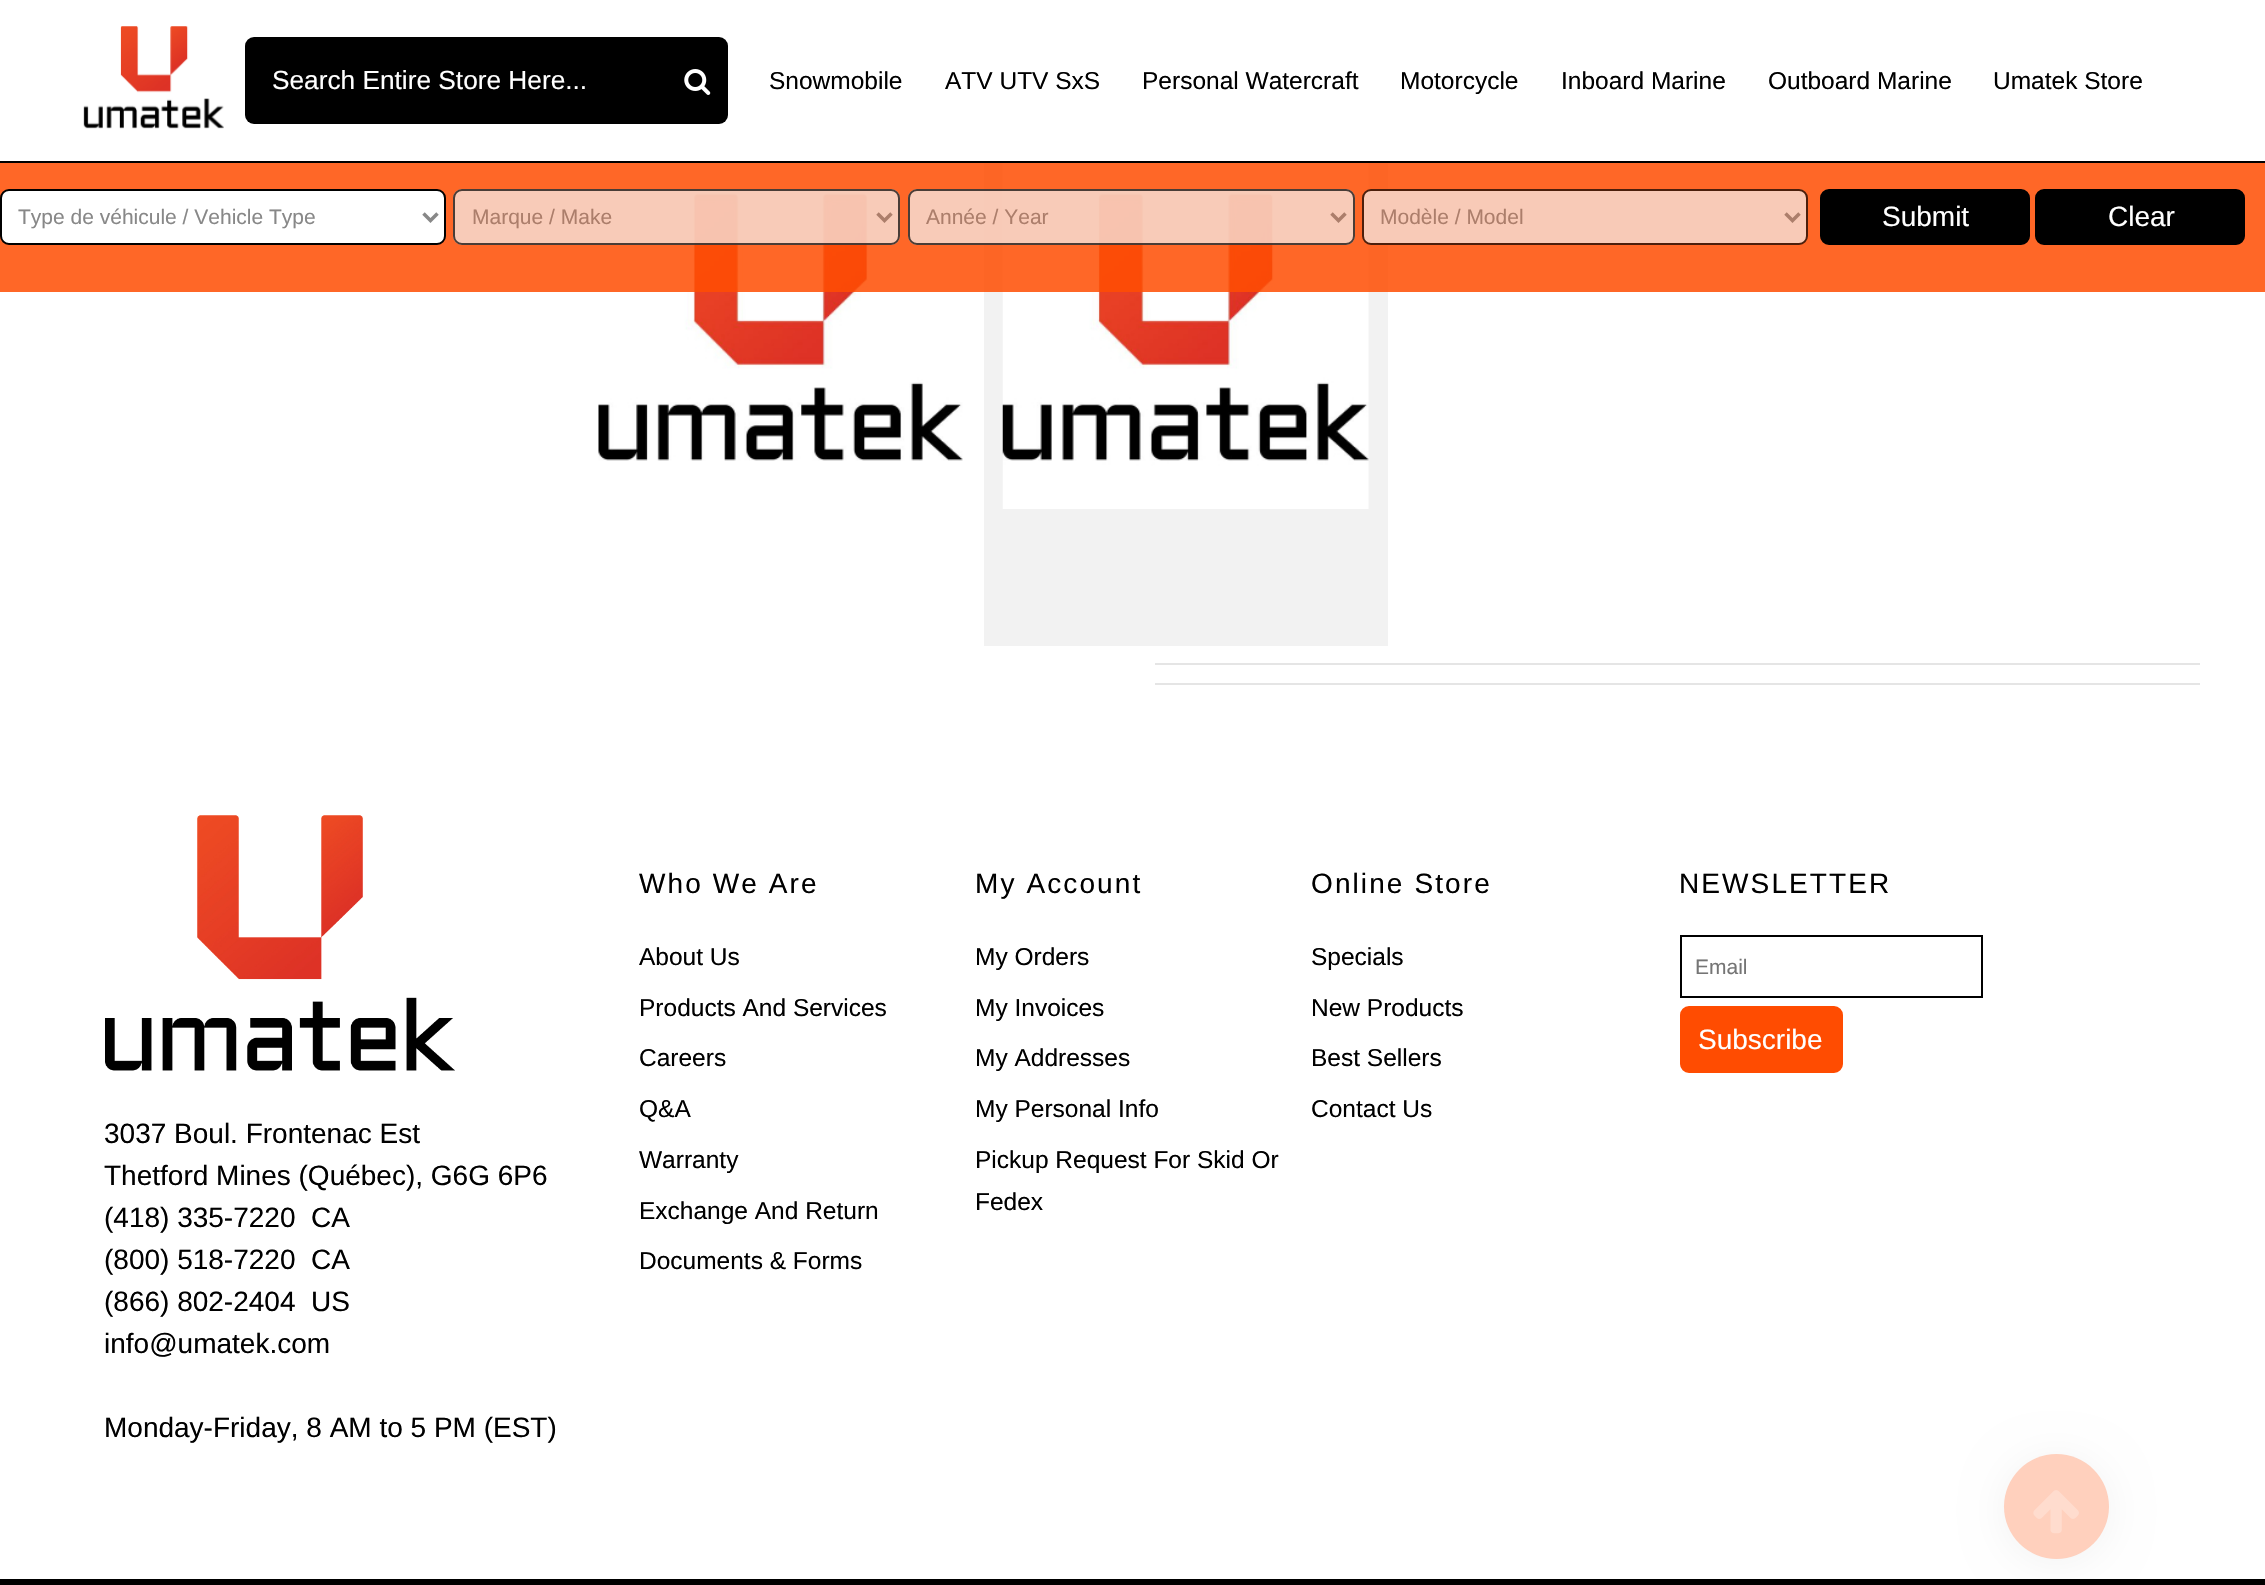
void draw(SkCanvas* canvas) {
	SkPaint fill;
	fill.setAntiAlias(true);
	auto makeFont = [&](const char* family, int weight, float size, bool italic = false) {
		SkFontStyle style(weight, SkFontStyle::kNormal_Width,
			italic ? SkFontStyle::kItalic_Slant : SkFontStyle::kUpright_Slant);
		SkFont result(fontMgr->matchFamilyStyle(family, style), size);
		result.setSubpixel(true);
		return result;
	};
	auto text = [&](const char* s, float x, float y, const SkFont& font) {
		canvas->drawString(s, x, y, font, fill);
	};
	auto spacedText = [&](const char* s, float x, float y, const SkFont& font, const SkPaint& ink, float letter, float word) {
		std::vector<SkGlyphID> glyphs(font.countText(s, strlen(s), SkTextEncoding::kUTF8));
		std::vector<float> xs(glyphs.size());
		font.textToGlyphs(s, strlen(s), SkTextEncoding::kUTF8, glyphs);
		font.getXPos(glyphs, xs, x);
		float extra = 0;
		for (size_t i = 0; i < glyphs.size(); i++) {
			xs[i] += extra;
			extra += letter + word * (glyphs[i] == font.unicharToGlyph(' '));
		}
		canvas->drawTextBlob(SkTextBlob::MakeFromPosHGlyphs(glyphs, xs, y, font), 0, 0, ink);
	};
	auto box = [&](float l, float t, float r, float b) {
		canvas->drawRect(SkRect::MakeLTRB(l, t, r, b), fill);
	};
	auto roundBox = [&](float l, float t, float r, float b, float radius) {
		canvas->drawRoundRect(SkRect::MakeLTRB(l, t, r, b), radius, radius, fill);
	};
	auto picture = [&](const char* path, float l, float t, float r, float b) {
		auto image = SkImages::DeferredFromEncodedData(SkData::MakeFromFileName(path));
		canvas->drawImageRect(image, SkRect::MakeLTRB(l, t, r, b), SkSamplingOptions());
	};
	canvas->clear(0xFFFFFFFF);
	picture("image0.png", 83, 26, 224, 129);
	fill.setColor(0xFF000000);
	roundBox(245, 37, 728, 124, 9);
	picture("image1.png", 684, 69, 711, 95);
	picture("image2.png", 598, 192, 963, 461);
	fill.setColor(0xFFF2F2F2);
	box(984, 163, 1388, 646);
	picture("image3.png", 1002, 163, 1369, 509);
	fill.setColor(0xD9FF4C01);
	box(0, 163, 2265, 292);
	fill.setColor(0xFF000000);
	box(0, 161, 2265, 163);
	fill.setColor(0xFFFFFFFF);
	canvas->drawRoundRect(SkRect::MakeLTRB(1, 190, 445, 244), 8, 8, fill);
	fill.setStyle(SkPaint::kStroke_Style);
	fill.setStrokeWidth(2);
	fill.setColor(0xFF000000);
	canvas->drawRoundRect(SkRect::MakeLTRB(1, 190, 445, 244), 8, 8, fill);
	fill.setStrokeWidth(3.5f);
	fill.setColor(0xFF888888);
	canvas->drawPath(SkPathBuilder().moveTo(423.5f, 213.5f).lineTo(430.5f, 220.5f).lineTo(437.5f, 213.5f).detach(), fill);
	fill.setStyle(SkPaint::kFill_Style);
	fill.setColor(0xB3F5F5F5);
	roundBox(453, 189, 900, 245, 9);
	fill.setStyle(SkPaint::kStroke_Style);
	fill.setStrokeWidth(2);
	fill.setColor(0xB3000000);
	canvas->drawRoundRect(SkRect::MakeLTRB(454, 190, 899, 244), 8, 8, fill);
	fill.setStrokeWidth(3.5f);
	fill.setColor(0xFFAC7E6B);
	canvas->drawPath(SkPathBuilder().moveTo(877.5f, 213.5f).lineTo(884.5f, 220.5f).lineTo(891.5f, 213.5f).detach(), fill);
	fill.setStyle(SkPaint::kFill_Style);
	fill.setColor(0xB3F5F5F5);
	roundBox(908, 189, 1355, 245, 9);
	fill.setStyle(SkPaint::kStroke_Style);
	fill.setStrokeWidth(2);
	fill.setColor(0xB3000000);
	canvas->drawRoundRect(SkRect::MakeLTRB(909, 190, 1354, 244), 8, 8, fill);
	fill.setStrokeWidth(3.5f);
	fill.setColor(0xFFAC7E6B);
	canvas->drawPath(SkPathBuilder().moveTo(1331.5f, 213.5f).lineTo(1338.5f, 220.5f).lineTo(1345.5f, 213.5f).detach(), fill);
	fill.setStyle(SkPaint::kFill_Style);
	fill.setColor(0xFFF8CAB7);
	canvas->drawRoundRect(SkRect::MakeLTRB(1363, 190, 1807, 244), 8, 8, fill);
	fill.setStyle(SkPaint::kStroke_Style);
	fill.setStrokeWidth(2);
	fill.setColor(0xFF4C1F0C);
	canvas->drawRoundRect(SkRect::MakeLTRB(1363, 190, 1807, 244), 8, 8, fill);
	fill.setStrokeWidth(3.5f);
	fill.setColor(0xFFAC7E6B);
	canvas->drawPath(SkPathBuilder().moveTo(1785.5f, 213.5f).lineTo(1792.5f, 220.5f).lineTo(1799.5f, 213.5f).detach(), fill);
	fill.setStyle(SkPaint::kFill_Style);
	fill.setColor(0xFF000000);
	canvas->drawRoundRect(SkRect::MakeLTRB(1821, 190, 2029, 244), 8, 8, fill);
	fill.setStyle(SkPaint::kStroke_Style);
	fill.setStrokeWidth(2);
	canvas->drawRoundRect(SkRect::MakeLTRB(1821, 190, 2029, 244), 8, 8, fill);
	fill.setStyle(SkPaint::kFill_Style);
	canvas->drawRoundRect(SkRect::MakeLTRB(2036, 190, 2244, 244), 8, 8, fill);
	fill.setStyle(SkPaint::kStroke_Style);
	canvas->drawRoundRect(SkRect::MakeLTRB(2036, 190, 2244, 244), 8, 8, fill);
	fill.setStyle(SkPaint::kFill_Style);
	fill.setColor(0xFFE5E5E5);
	box(1155, 663, 2200, 665);
	box(1155, 683, 2200, 685);
	fill.setStyle(SkPaint::kStroke_Style);
	fill.setColor(0xFF000000);
	canvas->drawRect(SkRect::MakeLTRB(1681, 936, 1982, 997), fill);
	fill.setStyle(SkPaint::kFill_Style);
	fill.setColor(0xFFFF4C01);
	canvas->drawRoundRect(SkRect::MakeLTRB(1681, 1007, 1842, 1072), 8, 8, fill);
	fill.setStyle(SkPaint::kStroke_Style);
	canvas->drawRoundRect(SkRect::MakeLTRB(1681, 1007, 1842, 1072), 8, 8, fill);
	picture("image4.png", 105, 815, 455, 1071);
	fill.setStyle(SkPaint::kFill_Style);
	fill.setColor(0xFF000000);
	box(0, 1579, 2265, 1585);
	fill.setColor(0x0D000000);
	fill.setMaskFilter(SkMaskFilter::MakeBlur(kNormal_SkBlurStyle, 21));
	canvas->drawRoundRect(SkRect::MakeLTRB(2004, 1458, 2109, 1563), 52.5f, 52.5f, fill);
	fill.setMaskFilter(nullptr);
	fill.setColor(0xFFFFD0BD);
	canvas->drawCircle(2056.5f, 1506.5f, 52.5f, fill);
	picture("image5.png", 2033, 1490, 2079, 1534);
	auto font1 = makeFont("Liberation Sans", 400, 26.25f);
	fill.setColor(0xFFFFFFFF);
	text("Search Entire Store Here...", 272, 89, font1);
	auto font2 = makeFont("Liberation Sans", 400, 24.5f);
	fill.setColor(0xFF000000);
	text("Snowmobile", 769, 89, font2);
	text("ATV UTV SxS", 945, 89, font2);
	text("Personal Watercraft", 1142, 89, font2);
	text("Motorcycle", 1400, 89, font2);
	text("Inboard Marine", 1561, 89, font2);
	text("Outboard Marine", 1768, 89, font2);
	text("Umatek Store", 1993, 89, font2);
	auto font3 = makeFont("Liberation Sans", 400, 21);
	fill.setColor(0xFF888888);
	text("Type de véhicule / Vehicle Type", 18, 224, font3);
	fill.setColor(0xFFAC7E6B);
	text("Marque / Make", 472, 224, font3);
	text("Année / Year", 926, 224, font3);
	text("Modèle / Model", 1380, 224, font3);
	auto font4 = makeFont("Liberation Sans", 400, 28);
	fill.setColor(0xFFFFFFFF);
	text("Submit", 1882, 226, font4);
	text("Clear", 2108, 226, font4);
	fill.setColor(0xFF000000);
	spacedText("Who We Are", 639, 893, font4, fill, 2.1f, 0);
	text("About Us", 639, 965, font2);
	text("Products And Services", 639, 1016, font2);
	text("Careers", 639, 1066, font2);
	text("Q&A", 639, 1117, font2);
	text("Warranty", 639, 1168, font2);
	text("Exchange And Return", 639, 1219, font2);
	text("Documents & Forms", 639, 1269, font2);
	spacedText("My Account", 975, 893, font4, fill, 2.1f, 0);
	text("My Orders", 975, 965, font2);
	text("My Invoices", 975, 1016, font2);
	text("My Addresses", 975, 1066, font2);
	text("My Personal Info", 975, 1117, font2);
	text("Pickup Request For Skid Or", 975, 1168, font2);
	text("Fedex", 975, 1210, font2);
	spacedText("Online Store", 1311, 893, font4, fill, 2.1f, 0);
	text("Specials", 1311, 965, font2);
	text("New Products", 1311, 1016, font2);
	text("Best Sellers", 1311, 1066, font2);
	text("Contact Us", 1311, 1117, font2);
	spacedText("NEWSLETTER", 1679, 893, font4, fill, 2.1f, 0);
	fill.setColor(0xFF757575);
	text("Email", 1695, 974, font3);
	fill.setColor(0xFFFFFFFF);
	text("Subscribe", 1698, 1049, font4);
	fill.setColor(0xFF000000);
	text("3037 Boul. Frontenac Est", 104, 1143, font4);
	text("Thetford Mines (Québec), G6G 6P6", 104, 1185, font4);
	text("(418) 335-7220", 104, 1227, font4);
	text("CA", 311, 1227, font4);
	text("(800) 518-7220", 104, 1269, font4);
	text("CA", 311, 1269, font4);
	text("(866) 802-2404", 104, 1311, font4);
	text("US", 311, 1311, font4);
	text("info@umatek.com", 104, 1353, font4);
	text("Monday-Friday, 8 AM to 5 PM (EST)", 104, 1437, font4);
}
